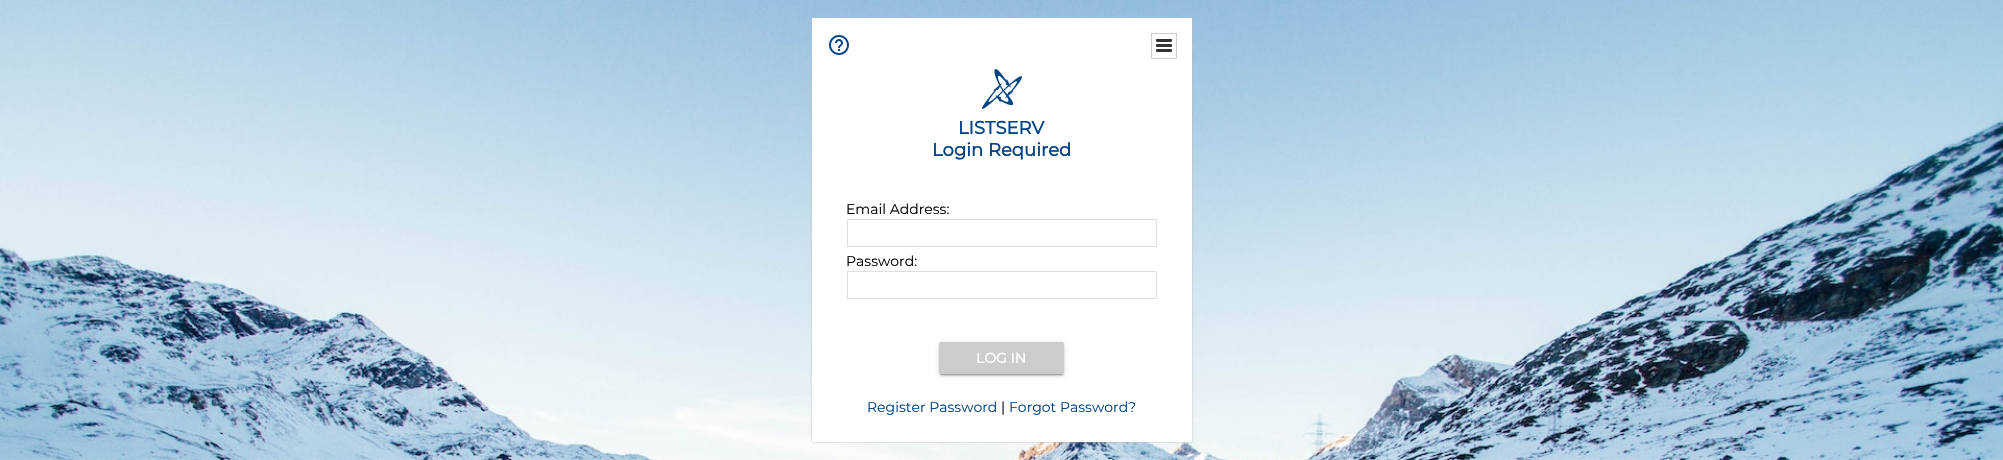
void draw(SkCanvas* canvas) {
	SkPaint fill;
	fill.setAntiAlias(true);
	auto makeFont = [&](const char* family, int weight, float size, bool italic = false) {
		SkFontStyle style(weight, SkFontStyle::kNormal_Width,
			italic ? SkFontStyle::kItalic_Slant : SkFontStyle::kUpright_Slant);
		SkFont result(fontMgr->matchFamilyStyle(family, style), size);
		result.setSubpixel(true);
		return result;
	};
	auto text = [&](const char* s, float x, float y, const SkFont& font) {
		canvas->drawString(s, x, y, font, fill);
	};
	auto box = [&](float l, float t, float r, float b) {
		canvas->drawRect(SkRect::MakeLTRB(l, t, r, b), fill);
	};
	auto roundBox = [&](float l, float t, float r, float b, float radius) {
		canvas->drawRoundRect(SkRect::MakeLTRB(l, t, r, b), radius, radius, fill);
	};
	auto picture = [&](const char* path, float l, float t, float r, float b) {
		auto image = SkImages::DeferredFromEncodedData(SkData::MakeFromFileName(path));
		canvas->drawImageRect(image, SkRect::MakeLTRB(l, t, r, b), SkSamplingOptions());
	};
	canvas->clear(0xFFFFFFFF);
	picture("image0.png", 0, 0, 2003, 460);
	fill.setColor(0xFFBBBBBB);
	fill.setMaskFilter(SkMaskFilter::MakeBlur(kNormal_SkBlurStyle, 1));
	canvas->drawRect(SkRect::MakeLTRB(812, 18, 1192, 442), fill);
	fill.setMaskFilter(nullptr);
	fill.setColor(0xFFFFFFFF);
	box(812, 18, 1192, 442);
	picture("image1.png", 829, 35, 849, 55);
	fill.setStyle(SkPaint::kStroke_Style);
	fill.setStrokeWidth(1);
	fill.setColor(0xFFCCCCCC);
	canvas->drawRect(SkRect::MakeLTRB(1151.5f, 33.5f, 1176.5f, 58.5f), fill);
	picture("image2.png", 1156, 39, 1172, 52);
	picture("image3.png", 982, 69, 1022, 109);
	fill.setColor(0xFFDEDEDE);
	canvas->drawRect(SkRect::MakeLTRB(847.5f, 219.5f, 1156.5f, 246.5f), fill);
	canvas->drawRect(SkRect::MakeLTRB(847.5f, 271.5f, 1156.5f, 298.5f), fill);
	fill.setStyle(SkPaint::kFill_Style);
	fill.setColor(0x33000000);
	fill.setMaskFilter(SkMaskFilter::MakeBlur(kNormal_SkBlurStyle, 0.5f));
	canvas->drawRect(SkRect::MakeLTRB(941, 347, 1062, 375), fill);
	fill.setMaskFilter(nullptr);
	fill.setColor(0x1F000000);
	fill.setMaskFilter(SkMaskFilter::MakeBlur(kNormal_SkBlurStyle, 2.5f));
	canvas->drawRoundRect(SkRect::MakeLTRB(939, 343, 1064, 375), 2, 2, fill);
	fill.setMaskFilter(nullptr);
	fill.setColor(0x24000000);
	fill.setMaskFilter(SkMaskFilter::MakeBlur(kNormal_SkBlurStyle, 1));
	canvas->drawRoundRect(SkRect::MakeLTRB(939, 344, 1064, 376), 2, 2, fill);
	fill.setMaskFilter(nullptr);
	fill.setColor(0xFFCCCCCC);
	roundBox(939, 342, 1064, 374, 2);
	auto font1 = makeFont("Montserrat", 700, 18);
	fill.setColor(0xFF054483);
	text("LISTSERV", 958, 134, font1);
	text("Login Required", 932, 156, font1);
	auto font2 = makeFont("Montserrat", 100, 14);
	fill.setColor(0xFF000000);
	text("Email Address:", 846, 214, font2);
	text("Password:", 846, 266, font2);
	auto font3 = makeFont("Montserrat", 700, 14);
	fill.setColor(0xFFFFFFFF);
	text("LOG IN", 976, 363, font3);
	fill.setColor(0xFF054483);
	text("Register Password", 867, 412, font2);
	fill.setColor(0xFF000000);
	text("|", 1001, 412, font2);
	fill.setColor(0xFF054483);
	text("Forgot Password?", 1009, 412, font2);
}
